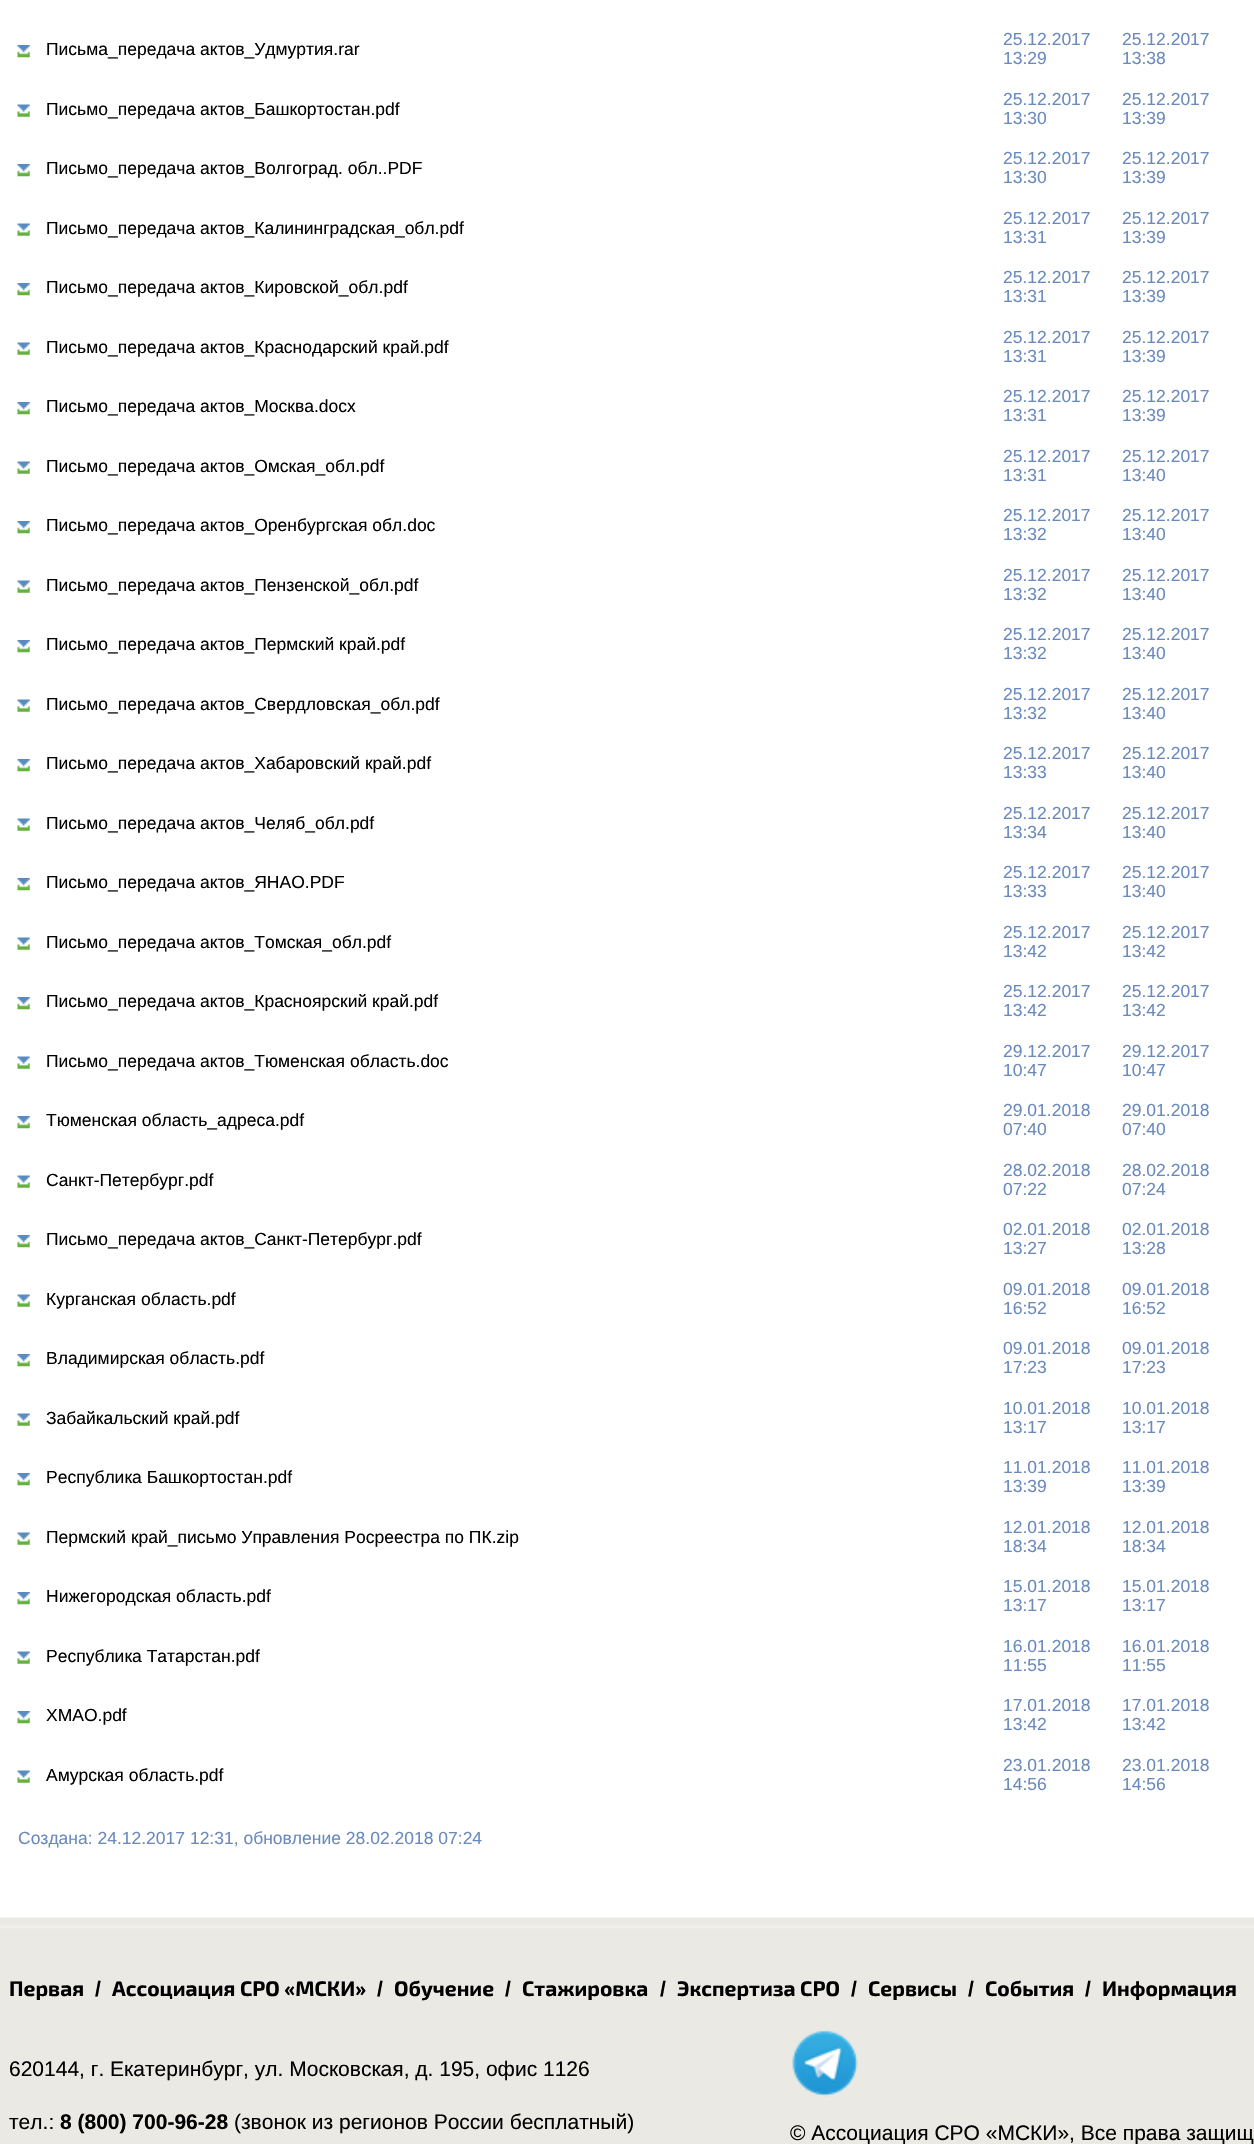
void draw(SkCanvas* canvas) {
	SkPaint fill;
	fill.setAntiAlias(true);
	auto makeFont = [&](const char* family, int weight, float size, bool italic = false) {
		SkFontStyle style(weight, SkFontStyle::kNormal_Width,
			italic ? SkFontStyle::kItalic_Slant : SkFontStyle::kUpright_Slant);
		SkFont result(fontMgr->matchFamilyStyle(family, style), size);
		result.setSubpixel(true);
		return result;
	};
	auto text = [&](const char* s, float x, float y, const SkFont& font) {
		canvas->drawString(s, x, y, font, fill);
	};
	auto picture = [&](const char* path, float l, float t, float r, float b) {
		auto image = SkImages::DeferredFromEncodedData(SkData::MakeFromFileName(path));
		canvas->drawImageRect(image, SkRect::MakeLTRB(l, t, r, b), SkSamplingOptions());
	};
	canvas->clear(0xFFFFFFFF);
	picture("image0.png", 17, 45, 30, 58);
	picture("image1.png", 17, 104, 30, 117);
	picture("image0.png", 17, 164, 30, 177);
	picture("image1.png", 17, 223, 30, 236);
	picture("image0.png", 17, 283, 30, 296);
	picture("image1.png", 17, 342, 30, 355);
	picture("image0.png", 17, 402, 30, 415);
	picture("image1.png", 17, 461, 30, 474);
	picture("image0.png", 17, 521, 30, 534);
	picture("image1.png", 17, 580, 30, 593);
	picture("image0.png", 17, 640, 30, 653);
	picture("image1.png", 17, 699, 30, 712);
	picture("image0.png", 17, 759, 30, 772);
	picture("image1.png", 17, 818, 30, 831);
	picture("image0.png", 17, 878, 30, 891);
	picture("image1.png", 17, 937, 30, 950);
	picture("image0.png", 17, 997, 30, 1010);
	picture("image1.png", 17, 1056, 30, 1069);
	picture("image0.png", 17, 1116, 30, 1129);
	picture("image1.png", 17, 1175, 30, 1188);
	picture("image0.png", 17, 1235, 30, 1248);
	picture("image1.png", 17, 1294, 30, 1307);
	picture("image0.png", 17, 1354, 30, 1367);
	picture("image1.png", 17, 1413, 30, 1426);
	picture("image0.png", 17, 1473, 30, 1486);
	picture("image1.png", 17, 1532, 30, 1545);
	picture("image0.png", 17, 1592, 30, 1605);
	picture("image1.png", 17, 1651, 30, 1664);
	picture("image0.png", 17, 1711, 30, 1724);
	picture("image1.png", 17, 1770, 30, 1783);
	picture("image2.png", 0, 1917, 1254, 2144);
	picture("image3.png", 792, 2030, 858, 2097);
	auto font1 = makeFont("Liberation Sans", 400, 17.5f);
	fill.setColor(0xFF000000);
	text("Письма_передача актов_Удмуртия.rar", 46, 55, font1);
	fill.setColor(0xFF6A8ABD);
	text("25.12.2017", 1003, 45, font1);
	text("13:29", 1003, 64, font1);
	text("25.12.2017", 1122, 45, font1);
	text("13:38", 1122, 64, font1);
	fill.setColor(0xFF000000);
	text("Письмо_передача актов_Башкортостан.pdf", 46, 115, font1);
	fill.setColor(0xFF6A8ABD);
	text("25.12.2017", 1003, 105, font1);
	text("13:30", 1003, 124, font1);
	text("25.12.2017", 1122, 105, font1);
	text("13:39", 1122, 124, font1);
	fill.setColor(0xFF000000);
	text("Письмо_передача актов_Волгоград. обл..PDF", 46, 174, font1);
	fill.setColor(0xFF6A8ABD);
	text("25.12.2017", 1003, 164, font1);
	text("13:30", 1003, 183, font1);
	text("25.12.2017", 1122, 164, font1);
	text("13:39", 1122, 183, font1);
	fill.setColor(0xFF000000);
	text("Письмо_передача актов_Калининградская_обл.pdf", 46, 234, font1);
	fill.setColor(0xFF6A8ABD);
	text("25.12.2017", 1003, 224, font1);
	text("13:31", 1003, 243, font1);
	text("25.12.2017", 1122, 224, font1);
	text("13:39", 1122, 243, font1);
	fill.setColor(0xFF000000);
	text("Письмо_передача актов_Кировской_обл.pdf", 46, 293, font1);
	fill.setColor(0xFF6A8ABD);
	text("25.12.2017", 1003, 283, font1);
	text("13:31", 1003, 302, font1);
	text("25.12.2017", 1122, 283, font1);
	text("13:39", 1122, 302, font1);
	fill.setColor(0xFF000000);
	text("Письмо_передача актов_Краснодарский край.pdf", 46, 353, font1);
	fill.setColor(0xFF6A8ABD);
	text("25.12.2017", 1003, 343, font1);
	text("13:31", 1003, 362, font1);
	text("25.12.2017", 1122, 343, font1);
	text("13:39", 1122, 362, font1);
	fill.setColor(0xFF000000);
	text("Письмо_передача актов_Москва.docx", 46, 412, font1);
	fill.setColor(0xFF6A8ABD);
	text("25.12.2017", 1003, 402, font1);
	text("13:31", 1003, 421, font1);
	text("25.12.2017", 1122, 402, font1);
	text("13:39", 1122, 421, font1);
	fill.setColor(0xFF000000);
	text("Письмо_передача актов_Омская_обл.pdf", 46, 472, font1);
	fill.setColor(0xFF6A8ABD);
	text("25.12.2017", 1003, 462, font1);
	text("13:31", 1003, 481, font1);
	text("25.12.2017", 1122, 462, font1);
	text("13:40", 1122, 481, font1);
	fill.setColor(0xFF000000);
	text("Письмо_передача актов_Оренбургская обл.doc", 46, 531, font1);
	fill.setColor(0xFF6A8ABD);
	text("25.12.2017", 1003, 521, font1);
	text("13:32", 1003, 540, font1);
	text("25.12.2017", 1122, 521, font1);
	text("13:40", 1122, 540, font1);
	fill.setColor(0xFF000000);
	text("Письмо_передача актов_Пензенской_обл.pdf", 46, 591, font1);
	fill.setColor(0xFF6A8ABD);
	text("25.12.2017", 1003, 581, font1);
	text("13:32", 1003, 600, font1);
	text("25.12.2017", 1122, 581, font1);
	text("13:40", 1122, 600, font1);
	fill.setColor(0xFF000000);
	text("Письмо_передача актов_Пермский край.pdf", 46, 650, font1);
	fill.setColor(0xFF6A8ABD);
	text("25.12.2017", 1003, 640, font1);
	text("13:32", 1003, 659, font1);
	text("25.12.2017", 1122, 640, font1);
	text("13:40", 1122, 659, font1);
	fill.setColor(0xFF000000);
	text("Письмо_передача актов_Свердловская_обл.pdf", 46, 710, font1);
	fill.setColor(0xFF6A8ABD);
	text("25.12.2017", 1003, 700, font1);
	text("13:32", 1003, 719, font1);
	text("25.12.2017", 1122, 700, font1);
	text("13:40", 1122, 719, font1);
	fill.setColor(0xFF000000);
	text("Письмо_передача актов_Хабаровский край.pdf", 46, 769, font1);
	fill.setColor(0xFF6A8ABD);
	text("25.12.2017", 1003, 759, font1);
	text("13:33", 1003, 778, font1);
	text("25.12.2017", 1122, 759, font1);
	text("13:40", 1122, 778, font1);
	fill.setColor(0xFF000000);
	text("Письмо_передача актов_Челяб_обл.pdf", 46, 829, font1);
	fill.setColor(0xFF6A8ABD);
	text("25.12.2017", 1003, 819, font1);
	text("13:34", 1003, 838, font1);
	text("25.12.2017", 1122, 819, font1);
	text("13:40", 1122, 838, font1);
	fill.setColor(0xFF000000);
	text("Письмо_передача актов_ЯНАО.PDF", 46, 888, font1);
	fill.setColor(0xFF6A8ABD);
	text("25.12.2017", 1003, 878, font1);
	text("13:33", 1003, 897, font1);
	text("25.12.2017", 1122, 878, font1);
	text("13:40", 1122, 897, font1);
	fill.setColor(0xFF000000);
	text("Письмо_передача актов_Томская_обл.pdf", 46, 948, font1);
	fill.setColor(0xFF6A8ABD);
	text("25.12.2017", 1003, 938, font1);
	text("13:42", 1003, 957, font1);
	text("25.12.2017", 1122, 938, font1);
	text("13:42", 1122, 957, font1);
	fill.setColor(0xFF000000);
	text("Письмо_передача актов_Красноярский край.pdf", 46, 1007, font1);
	fill.setColor(0xFF6A8ABD);
	text("25.12.2017", 1003, 997, font1);
	text("13:42", 1003, 1016, font1);
	text("25.12.2017", 1122, 997, font1);
	text("13:42", 1122, 1016, font1);
	fill.setColor(0xFF000000);
	text("Письмо_передача актов_Тюменская область.doc", 46, 1067, font1);
	fill.setColor(0xFF6A8ABD);
	text("29.12.2017", 1003, 1057, font1);
	text("10:47", 1003, 1076, font1);
	text("29.12.2017", 1122, 1057, font1);
	text("10:47", 1122, 1076, font1);
	fill.setColor(0xFF000000);
	text("Тюменская область_адреса.pdf", 46, 1126, font1);
	fill.setColor(0xFF6A8ABD);
	text("29.01.2018", 1003, 1116, font1);
	text("07:40", 1003, 1135, font1);
	text("29.01.2018", 1122, 1116, font1);
	text("07:40", 1122, 1135, font1);
	fill.setColor(0xFF000000);
	text("Санкт-Петербург.pdf", 46, 1186, font1);
	fill.setColor(0xFF6A8ABD);
	text("28.02.2018", 1003, 1176, font1);
	text("07:22", 1003, 1195, font1);
	text("28.02.2018", 1122, 1176, font1);
	text("07:24", 1122, 1195, font1);
	fill.setColor(0xFF000000);
	text("Письмо_передача актов_Санкт-Петербург.pdf", 46, 1245, font1);
	fill.setColor(0xFF6A8ABD);
	text("02.01.2018", 1003, 1235, font1);
	text("13:27", 1003, 1254, font1);
	text("02.01.2018", 1122, 1235, font1);
	text("13:28", 1122, 1254, font1);
	fill.setColor(0xFF000000);
	text("Курганская область.pdf", 46, 1305, font1);
	fill.setColor(0xFF6A8ABD);
	text("09.01.2018", 1003, 1295, font1);
	text("16:52", 1003, 1314, font1);
	text("09.01.2018", 1122, 1295, font1);
	text("16:52", 1122, 1314, font1);
	fill.setColor(0xFF000000);
	text("Владимирская область.pdf", 46, 1364, font1);
	fill.setColor(0xFF6A8ABD);
	text("09.01.2018", 1003, 1354, font1);
	text("17:23", 1003, 1373, font1);
	text("09.01.2018", 1122, 1354, font1);
	text("17:23", 1122, 1373, font1);
	fill.setColor(0xFF000000);
	text("Забайкальский край.pdf", 46, 1424, font1);
	fill.setColor(0xFF6A8ABD);
	text("10.01.2018", 1003, 1414, font1);
	text("13:17", 1003, 1433, font1);
	text("10.01.2018", 1122, 1414, font1);
	text("13:17", 1122, 1433, font1);
	fill.setColor(0xFF000000);
	text("Республика Башкортостан.pdf", 46, 1483, font1);
	fill.setColor(0xFF6A8ABD);
	text("11.01.2018", 1003, 1473, font1);
	text("13:39", 1003, 1492, font1);
	text("11.01.2018", 1122, 1473, font1);
	text("13:39", 1122, 1492, font1);
	fill.setColor(0xFF000000);
	text("Пермский край_письмо Управления Росреестра по ПК.zip", 46, 1543, font1);
	fill.setColor(0xFF6A8ABD);
	text("12.01.2018", 1003, 1533, font1);
	text("18:34", 1003, 1552, font1);
	text("12.01.2018", 1122, 1533, font1);
	text("18:34", 1122, 1552, font1);
	fill.setColor(0xFF000000);
	text("Нижегородская область.pdf", 46, 1602, font1);
	fill.setColor(0xFF6A8ABD);
	text("15.01.2018", 1003, 1592, font1);
	text("13:17", 1003, 1611, font1);
	text("15.01.2018", 1122, 1592, font1);
	text("13:17", 1122, 1611, font1);
	fill.setColor(0xFF000000);
	text("Республика Татарстан.pdf", 46, 1662, font1);
	fill.setColor(0xFF6A8ABD);
	text("16.01.2018", 1003, 1652, font1);
	text("11:55", 1003, 1671, font1);
	text("16.01.2018", 1122, 1652, font1);
	text("11:55", 1122, 1671, font1);
	fill.setColor(0xFF000000);
	text("ХМАО.pdf", 46, 1721, font1);
	fill.setColor(0xFF6A8ABD);
	text("17.01.2018", 1003, 1711, font1);
	text("13:42", 1003, 1730, font1);
	text("17.01.2018", 1122, 1711, font1);
	text("13:42", 1122, 1730, font1);
	fill.setColor(0xFF000000);
	text("Амурская область.pdf", 46, 1781, font1);
	fill.setColor(0xFF6A8ABD);
	text("23.01.2018", 1003, 1771, font1);
	text("14:56", 1003, 1790, font1);
	text("23.01.2018", 1122, 1771, font1);
	text("14:56", 1122, 1790, font1);
	text("Создана: 24.12.2017 12:31, обновление 28.02.2018 07:24", 18, 1844, font1);
	auto font2 = makeFont("Exo 2", 700, 21);
	fill.setColor(0xFF000000);
	text("Первая", 9, 1996, font2);
	auto font3 = makeFont("Liberation Sans", 700, 21);
	text("/", 95, 1996, font3);
	text("Ассоциация СРО «МСКИ»", 112, 1996, font2);
	text("/", 377, 1996, font3);
	text("Обучение", 394, 1996, font2);
	text("/", 505, 1996, font3);
	text("Стажировка", 522, 1996, font2);
	text("/", 660, 1996, font3);
	text("Экспертиза СРО", 677, 1996, font2);
	text("/", 851, 1996, font3);
	text("Сервисы", 868, 1996, font2);
	text("/", 968, 1996, font3);
	text("События", 985, 1996, font2);
	text("/", 1085, 1996, font3);
	text("Информация", 1102, 1996, font2);
	auto font4 = makeFont("Liberation Sans", 400, 21);
	text("620144, г. Екатеринбург, ул. Московская, д. 195, офис 1126", 9, 2076, font4);
	text("тел.:", 9, 2129, font4);
	text("8 (800) 700-96-28", 60, 2129, font3);
	text("(звонок из регионов России бесплатный)", 234, 2129, font4);
	text("© Ассоциация СРО «МСКИ», Все права защищ", 790, 2140, font4);
}
